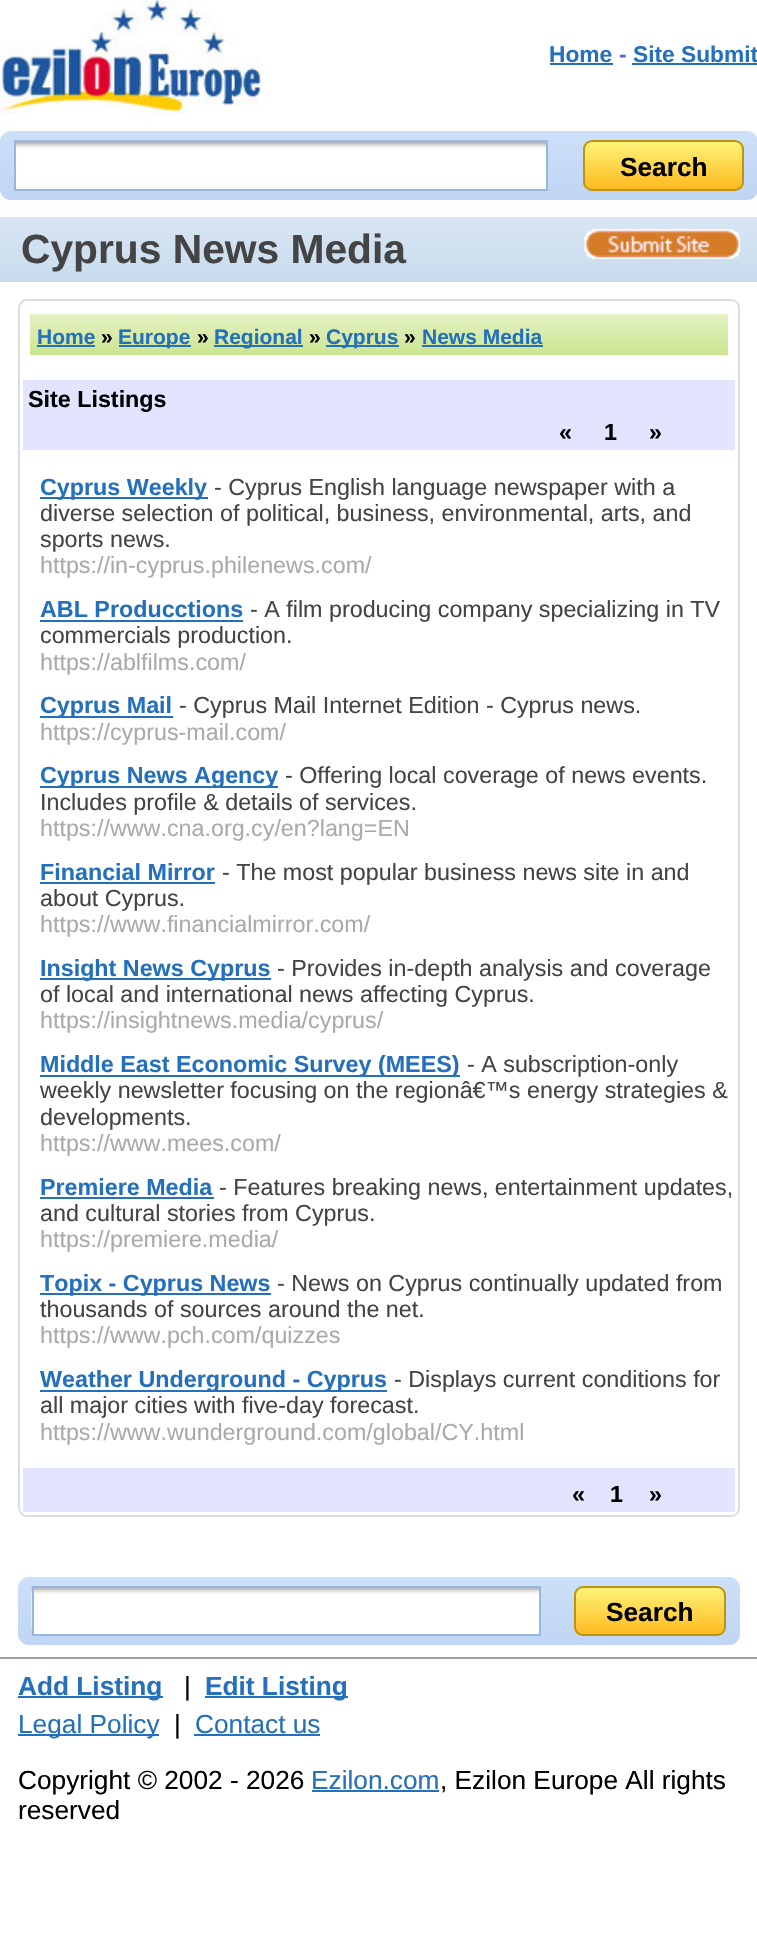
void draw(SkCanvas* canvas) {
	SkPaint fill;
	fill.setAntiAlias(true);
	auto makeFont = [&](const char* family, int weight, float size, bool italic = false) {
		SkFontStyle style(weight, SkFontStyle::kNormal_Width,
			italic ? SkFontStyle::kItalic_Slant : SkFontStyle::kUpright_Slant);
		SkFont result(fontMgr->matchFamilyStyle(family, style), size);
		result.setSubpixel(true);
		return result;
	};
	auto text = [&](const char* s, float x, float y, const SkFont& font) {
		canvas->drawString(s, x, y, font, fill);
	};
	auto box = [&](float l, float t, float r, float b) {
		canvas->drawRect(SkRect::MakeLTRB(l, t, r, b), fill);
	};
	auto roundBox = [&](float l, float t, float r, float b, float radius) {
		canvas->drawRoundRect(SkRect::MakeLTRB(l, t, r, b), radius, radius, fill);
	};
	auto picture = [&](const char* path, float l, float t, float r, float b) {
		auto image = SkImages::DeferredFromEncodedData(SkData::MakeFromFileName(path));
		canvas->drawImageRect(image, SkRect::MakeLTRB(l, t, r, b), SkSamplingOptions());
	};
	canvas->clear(0xFFFFFFFF);
	picture("image0.png", 0, 0, 263, 114);
	fill.setColor(0xFF2470BD);
	box(550, 63, 613, 65);
	box(632, 63, 757, 65);
	{
		const SkColor colors[] = {0xFFCDE0F9, 0xFFBFD5F3};
		const float stops[] = {0, 1};
		const SkPoint ends[] = {{379, 131}, {379, 200}};
		fill.setShader(SkGradientShader::MakeLinear(ends, colors, stops, 2, SkTileMode::kClamp));
		fill.setAlpha(255);
	}
	roundBox(0, 131, 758, 200, 11);
	fill.setShader(nullptr);
	fill.setColor(0xFFFFFFFF);
	box(16, 149, 546, 189);
	picture("image1.png", 16, 142, 546, 149);
	fill.setStyle(SkPaint::kStroke_Style);
	fill.setStrokeWidth(2);
	fill.setColor(0xFF98B7E0);
	canvas->drawRect(SkRect::MakeLTRB(15, 141, 547, 190), fill);
	canvas->save();
	canvas->clipPath(SkPathBuilder().moveTo(592, 140).lineTo(735, 140).cubicTo(740, 140, 744, 144, 744, 149).lineTo(744, 182).cubicTo(744, 187, 740, 191, 735, 191).lineTo(592, 191).cubicTo(587, 191, 583, 187, 583, 182).lineTo(583, 149).cubicTo(583, 144, 587, 140, 592, 140).close().detach(), true);
	fill.setStyle(SkPaint::kFill_Style);
	{
		const SkColor colors[] = {0xFFFEF378, 0xFFFFBA20};
		const float stops[] = {0, 1};
		const SkPoint ends[] = {{663, 142}, {663, 189}};
		fill.setShader(SkGradientShader::MakeLinear(ends, colors, stops, 2, SkTileMode::kClamp));
		fill.setAlpha(255);
	}
	box(583, 142, 744, 189);
	canvas->restore();
	fill.setStyle(SkPaint::kStroke_Style);
	fill.setShader(nullptr);
	fill.setColor(0xFFBA9515);
	canvas->drawRoundRect(SkRect::MakeLTRB(584, 141, 743, 190), 8, 8, fill);
	fill.setStyle(SkPaint::kFill_Style);
	{
		const SkColor colors[] = {0xFFD9E5F4, 0xFFC7DCED};
		const float stops[] = {0, 1};
		const SkPoint ends[] = {{379, 217}, {379, 282}};
		fill.setShader(SkGradientShader::MakeLinear(ends, colors, stops, 2, SkTileMode::kClamp));
		fill.setAlpha(255);
	}
	box(0, 217, 757, 282);
	picture("image2.png", 584, 229, 741, 259);
	fill.setStyle(SkPaint::kStroke_Style);
	fill.setShader(nullptr);
	fill.setColor(0xFFDDDDDD);
	canvas->drawRoundRect(SkRect::MakeLTRB(19, 300, 739, 1516), 8, 8, fill);
	fill.setStyle(SkPaint::kFill_Style);
	{
		const SkColor colors[] = {0xFFE5F2C6, 0xFFCBE58E};
		const float stops[] = {0, 1};
		const SkPoint ends[] = {{379, 313}, {379, 355}};
		fill.setShader(SkGradientShader::MakeLinear(ends, colors, stops, 2, SkTileMode::kClamp));
		fill.setAlpha(255);
	}
	box(30, 314, 728, 355);
	fill.setShader(nullptr);
	fill.setColor(0xFF2470BD);
	box(37, 345, 95, 347);
	box(119, 345, 191, 347);
	box(214, 345, 303, 347);
	box(326, 345, 399, 347);
	box(422, 345, 543, 347);
	fill.setColor(0xFFE3E4FF);
	box(23, 380, 735, 450);
	fill.setColor(0xFF2470BD);
	box(40, 497, 208, 499);
	box(40, 620, 243, 622);
	box(40, 716, 173, 718);
	box(40, 786, 278, 788);
	box(40, 882, 215, 884);
	box(40, 978, 271, 980);
	box(40, 1075, 460, 1077);
	box(40, 1197, 214, 1199);
	box(40, 1293, 271, 1295);
	box(40, 1390, 387, 1392);
	fill.setColor(0xFFE3E4FF);
	box(23, 1468, 735, 1512);
	{
		const SkColor colors[] = {0xFFCDE0F9, 0xFFBFD5F3};
		const float stops[] = {0, 1};
		const SkPoint ends[] = {{379, 1577}, {379, 1645}};
		fill.setShader(SkGradientShader::MakeLinear(ends, colors, stops, 2, SkTileMode::kClamp));
		fill.setAlpha(255);
	}
	roundBox(18, 1577, 740, 1645, 11);
	fill.setShader(nullptr);
	fill.setColor(0xFFFFFFFF);
	box(34, 1629, 539, 1634);
	picture("image3.png", 31, 1587, 539, 1630);
	fill.setStyle(SkPaint::kStroke_Style);
	fill.setColor(0xFF98B7E0);
	canvas->drawRect(SkRect::MakeLTRB(33, 1587, 540, 1635), fill);
	canvas->save();
	canvas->clipPath(SkPathBuilder().moveTo(583, 1586).lineTo(717, 1586).cubicTo(722, 1586, 726, 1590, 726, 1595).lineTo(726, 1627).cubicTo(726, 1632, 722, 1636, 717, 1636).lineTo(583, 1636).cubicTo(578, 1636, 574, 1632, 574, 1627).lineTo(574, 1595).cubicTo(574, 1590, 578, 1586, 583, 1586).close().detach(), true);
	fill.setStyle(SkPaint::kFill_Style);
	{
		const SkColor colors[] = {0xFFFEF378, 0xFFFFBA20};
		const float stops[] = {0, 1};
		const SkPoint ends[] = {{650, 1587}, {650, 1635}};
		fill.setShader(SkGradientShader::MakeLinear(ends, colors, stops, 2, SkTileMode::kClamp));
		fill.setAlpha(255);
	}
	box(574, 1587, 726, 1635);
	canvas->restore();
	fill.setStyle(SkPaint::kStroke_Style);
	fill.setShader(nullptr);
	fill.setColor(0xFFBA9515);
	canvas->drawRoundRect(SkRect::MakeLTRB(575, 1587, 725, 1635), 8, 8, fill);
	fill.setStyle(SkPaint::kFill_Style);
	fill.setColor(0xFF9F9F9F);
	box(0, 1657, 757, 1659);
	fill.setColor(0xFF2470BD);
	box(18, 1696, 163, 1698);
	box(205, 1696, 348, 1698);
	box(18, 1734, 159, 1736);
	box(194, 1734, 320, 1736);
	box(312, 1790, 439, 1792);
	auto font1 = makeFont("Liberation Sans", 700, 22.75f);
	text("Home", 549, 62, font1);
	fill.setColor(0xFF5868D0);
	text("-", 619, 62, font1);
	fill.setColor(0xFF2470BD);
	text("Site Submit", 633, 62, font1);
	auto font2 = makeFont("Liberation Sans", 700, 26.25f);
	fill.setColor(0xFF000000);
	text("Search", 620, 176, font2);
	auto font3 = makeFont("Liberation Sans", 700, 40.75f);
	fill.setColor(0xFF444444);
	text("Cyprus News Media", 21, 263, font3);
	auto font4 = makeFont("Liberation Sans", 700, 21);
	fill.setColor(0xFF2470BD);
	text("Home", 37, 344, font4);
	fill.setColor(0xFF000000);
	text("»", 101, 344, font4);
	fill.setColor(0xFF2470BD);
	text("Europe", 118, 344, font4);
	fill.setColor(0xFF000000);
	text("»", 197, 344, font4);
	fill.setColor(0xFF2470BD);
	text("Regional", 214, 344, font4);
	fill.setColor(0xFF000000);
	text("»", 309, 344, font4);
	fill.setColor(0xFF2470BD);
	text("Cyprus", 326, 344, font4);
	fill.setColor(0xFF000000);
	text("»", 404, 344, font4);
	fill.setColor(0xFF2470BD);
	text("News Media", 422, 344, font4);
	auto font5 = makeFont("Liberation Sans", 700, 23.3f);
	fill.setColor(0xFF000000);
	text("Site Listings", 28, 407, font5);
	text("«", 559, 440, font5);
	text("1", 604, 440, font5);
	text("»", 649, 440, font5);
	fill.setColor(0xFF2470BD);
	text("Cyprus Weekly", 40, 495, font5);
	auto font6 = makeFont("Liberation Sans", 400, 23.3f);
	fill.setColor(0xFF444444);
	text("- Cyprus English language newspaper with a", 214, 495, font6);
	text("diverse selection of political, business, environmental, arts, and", 40, 521, font6);
	text("sports news.", 40, 547, font6);
	fill.setColor(0xFFAAAAAA);
	text("https://in-cyprus.philenews.com/", 40, 573, font6);
	fill.setColor(0xFF2470BD);
	text("ABL Producctions", 40, 617, font5);
	fill.setColor(0xFF444444);
	text("- A film producing company specializing in TV", 250, 617, font6);
	text("commercials production.", 40, 643, font6);
	fill.setColor(0xFFAAAAAA);
	text("https://ablfilms.com/", 40, 670, font6);
	fill.setColor(0xFF2470BD);
	text("Cyprus Mail", 40, 713, font5);
	fill.setColor(0xFF444444);
	text("- Cyprus Mail Internet Edition - Cyprus news.", 179, 713, font6);
	fill.setColor(0xFFAAAAAA);
	text("https://cyprus-mail.com/", 40, 740, font6);
	fill.setColor(0xFF2470BD);
	text("Cyprus News Agency", 40, 783, font5);
	fill.setColor(0xFF444444);
	text("- Offering local coverage of news events.", 285, 783, font6);
	text("Includes profile & details of services.", 40, 810, font6);
	fill.setColor(0xFFAAAAAA);
	text("https://www.cna.org.cy/en?lang=EN", 40, 836, font6);
	fill.setColor(0xFF2470BD);
	text("Financial Mirror", 40, 880, font5);
	fill.setColor(0xFF444444);
	text("- The most popular business news site in and", 222, 880, font6);
	text("about Cyprus.", 40, 906, font6);
	fill.setColor(0xFFAAAAAA);
	text("https://www.financialmirror.com/", 40, 932, font6);
	fill.setColor(0xFF2470BD);
	text("Insight News Cyprus", 40, 976, font5);
	fill.setColor(0xFF444444);
	text("- Provides in-depth analysis and coverage", 277, 976, font6);
	text("of local and international news affecting Cyprus.", 40, 1002, font6);
	fill.setColor(0xFFAAAAAA);
	text("https://insightnews.media/cyprus/", 40, 1028, font6);
	fill.setColor(0xFF2470BD);
	text("Middle East Economic Survey (MEES)", 40, 1072, font5);
	fill.setColor(0xFF444444);
	text("- A subscription-only", 467, 1072, font6);
	text("weekly newsletter focusing on the regionâ€™s energy strategies &", 40, 1098, font6);
	text("developments.", 40, 1125, font6);
	fill.setColor(0xFFAAAAAA);
	text("https://www.mees.com/", 40, 1151, font6);
	fill.setColor(0xFF2470BD);
	text("Premiere Media", 40, 1195, font5);
	fill.setColor(0xFF444444);
	text("- Features breaking news, entertainment updates,", 219, 1195, font6);
	text("and cultural stories from Cyprus.", 40, 1221, font6);
	fill.setColor(0xFFAAAAAA);
	text("https://premiere.media/", 40, 1247, font6);
	fill.setColor(0xFF2470BD);
	text("Topix - Cyprus News", 40, 1291, font5);
	fill.setColor(0xFF444444);
	text("- News on Cyprus continually updated from", 277, 1291, font6);
	text("thousands of sources around the net.", 40, 1317, font6);
	fill.setColor(0xFFAAAAAA);
	text("https://www.pch.com/quizzes", 40, 1343, font6);
	fill.setColor(0xFF2470BD);
	text("Weather Underground - Cyprus", 40, 1387, font5);
	fill.setColor(0xFF444444);
	text("- Displays current conditions for", 394, 1387, font6);
	text("all major cities with five-day forecast.", 40, 1413, font6);
	fill.setColor(0xFFAAAAAA);
	text("https://www.wunderground.com/global/CY.html", 40, 1440, font6);
	fill.setColor(0xFF000000);
	text("«", 572, 1502, font5);
	text("1", 610, 1502, font5);
	text("»", 649, 1502, font5);
	text("Search", 606, 1621, font2);
	fill.setColor(0xFF2470BD);
	text("Add Listing", 18, 1695, font2);
	auto font7 = makeFont("Liberation Sans", 400, 26.25f);
	fill.setColor(0xFF000000);
	text("|", 184, 1695, font7);
	fill.setColor(0xFF2470BD);
	text("Edit Listing", 205, 1695, font2);
	text("Legal Policy", 18, 1733, font7);
	fill.setColor(0xFF000000);
	text("|", 174, 1733, font7);
	fill.setColor(0xFF2470BD);
	text("Contact us", 195, 1733, font7);
	fill.setColor(0xFF000000);
	text("Copyright © 2002 - 2026", 18, 1789, font7);
	fill.setColor(0xFF2470BD);
	text("Ezilon.com", 311, 1789, font7);
	fill.setColor(0xFF000000);
	text(", Ezilon Europe All rights", 440, 1789, font7);
	text("reserved", 18, 1819, font7);
}
